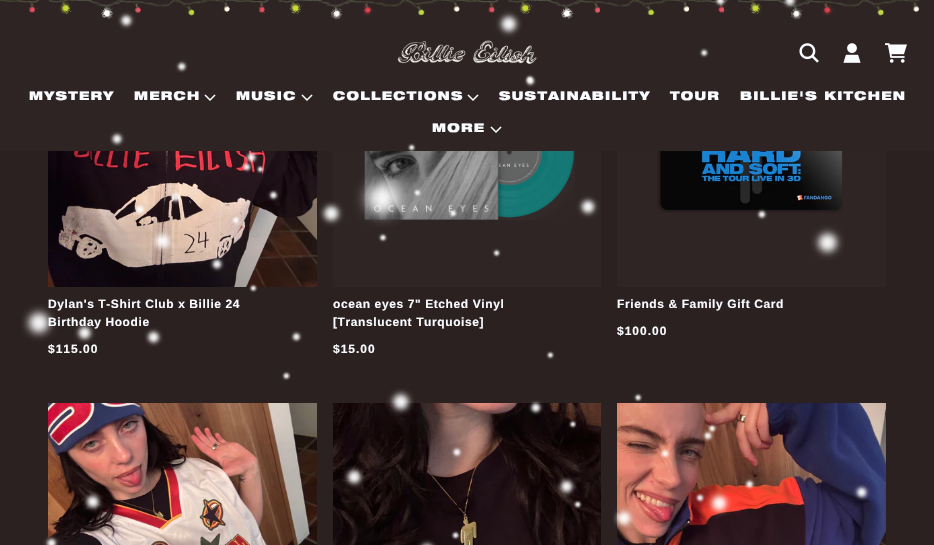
void draw(SkCanvas* canvas) {
	SkPaint fill;
	fill.setAntiAlias(true);
	auto makeFont = [&](const char* family, int weight, float size, bool italic = false) {
		SkFontStyle style(weight, SkFontStyle::kNormal_Width,
			italic ? SkFontStyle::kItalic_Slant : SkFontStyle::kUpright_Slant);
		SkFont result(fontMgr->matchFamilyStyle(family, style), size);
		result.setSubpixel(true);
		return result;
	};
	auto spacedText = [&](const char* s, float x, float y, const SkFont& font, const SkPaint& ink, float letter, float word) {
		std::vector<SkGlyphID> glyphs(font.countText(s, strlen(s), SkTextEncoding::kUTF8));
		std::vector<float> xs(glyphs.size());
		font.textToGlyphs(s, strlen(s), SkTextEncoding::kUTF8, glyphs);
		font.getXPos(glyphs, xs, x);
		float extra = 0;
		for (size_t i = 0; i < glyphs.size(); i++) {
			xs[i] += extra;
			extra += letter + word * (glyphs[i] == font.unicharToGlyph(' '));
		}
		canvas->drawTextBlob(SkTextBlob::MakeFromPosHGlyphs(glyphs, xs, y, font), 0, 0, ink);
	};
	auto box = [&](float l, float t, float r, float b) {
		canvas->drawRect(SkRect::MakeLTRB(l, t, r, b), fill);
	};
	auto picture = [&](const char* path, float l, float t, float r, float b) {
		auto image = SkImages::DeferredFromEncodedData(SkData::MakeFromFileName(path));
		canvas->drawImageRect(image, SkRect::MakeLTRB(l, t, r, b), SkSamplingOptions());
	};
	canvas->clear(0xFF2C2121);
	fill.setColor(0xFF2E2424);
	box(0, 0, 934, 151);
	picture("image1.png", 0, 0, 921, 20);
	picture("image2.png", 397, 40, 537, 64);
	picture("image3.png", 799, 43, 819, 63);
	picture("image4.png", 843, 43, 861, 63);
	picture("image5.png", 885, 43, 907, 63);
	picture("image6.png", 204, 94, 216, 101);
	picture("image6.png", 301, 94, 313, 101);
	picture("image6.png", 467, 94, 479, 101);
	picture("image6.png", 490, 126, 502, 133);
	picture("image7.png", 48, 151, 317, 287);
	fill.setColor(0xFF2F2525);
	box(333, 151, 601, 287);
	picture("image8.png", 364, 151, 575, 220);
	box(617, 151, 886, 287);
	picture("image9.png", 657, 151, 843, 213);
	picture("image10.png", 48, 403, 317, 545);
	picture("image11.png", 333, 403, 601, 545);
	picture("image12.png", 617, 403, 886, 545);
	auto font1 = makeFont("Helvetica Neue", 900, 12);
	fill.setColor(0xFFFAFCFF);
	spacedText("MYSTERY", 29, 100, font1, fill, 1.25f, 0);
	spacedText("MERCH", 134, 100, font1, fill, 1.25f, 0);
	spacedText("MUSIC", 236, 100, font1, fill, 1.25f, 0);
	spacedText("COLLECTIONS", 333, 100, font1, fill, 1.25f, 0);
	spacedText("SUSTAINABILITY", 499, 100, font1, fill, 1.25f, 0);
	spacedText("TOUR", 670, 100, font1, fill, 1.25f, 0);
	spacedText("BILLIE'S KITCHEN", 740, 100, font1, fill, 1.25f, 0);
	spacedText("MORE", 432, 132, font1, fill, 1.25f, 0);
	auto font2 = makeFont("Liberation Sans", 700, 12);
	spacedText("Dylan's T-Shirt Club x Billie 24", 48, 308, font2, fill, 0.6f, 0);
	spacedText("Birthday Hoodie", 48, 326, font2, fill, 0.6f, 0);
	spacedText("$115.00", 48, 353, font2, fill, 1, 0);
	spacedText("ocean eyes 7\" Etched Vinyl", 333, 308, font2, fill, 0.6f, 0);
	spacedText("[Translucent Turquoise]", 333, 326, font2, fill, 0.6f, 0);
	spacedText("$15.00", 333, 353, font2, fill, 1, 0);
	spacedText("Friends & Family Gift Card", 617, 308, font2, fill, 0.6f, 0);
	spacedText("$100.00", 617, 335, font2, fill, 1, 0);
	picture("image0.png", 21, 0, 870, 545);
}
